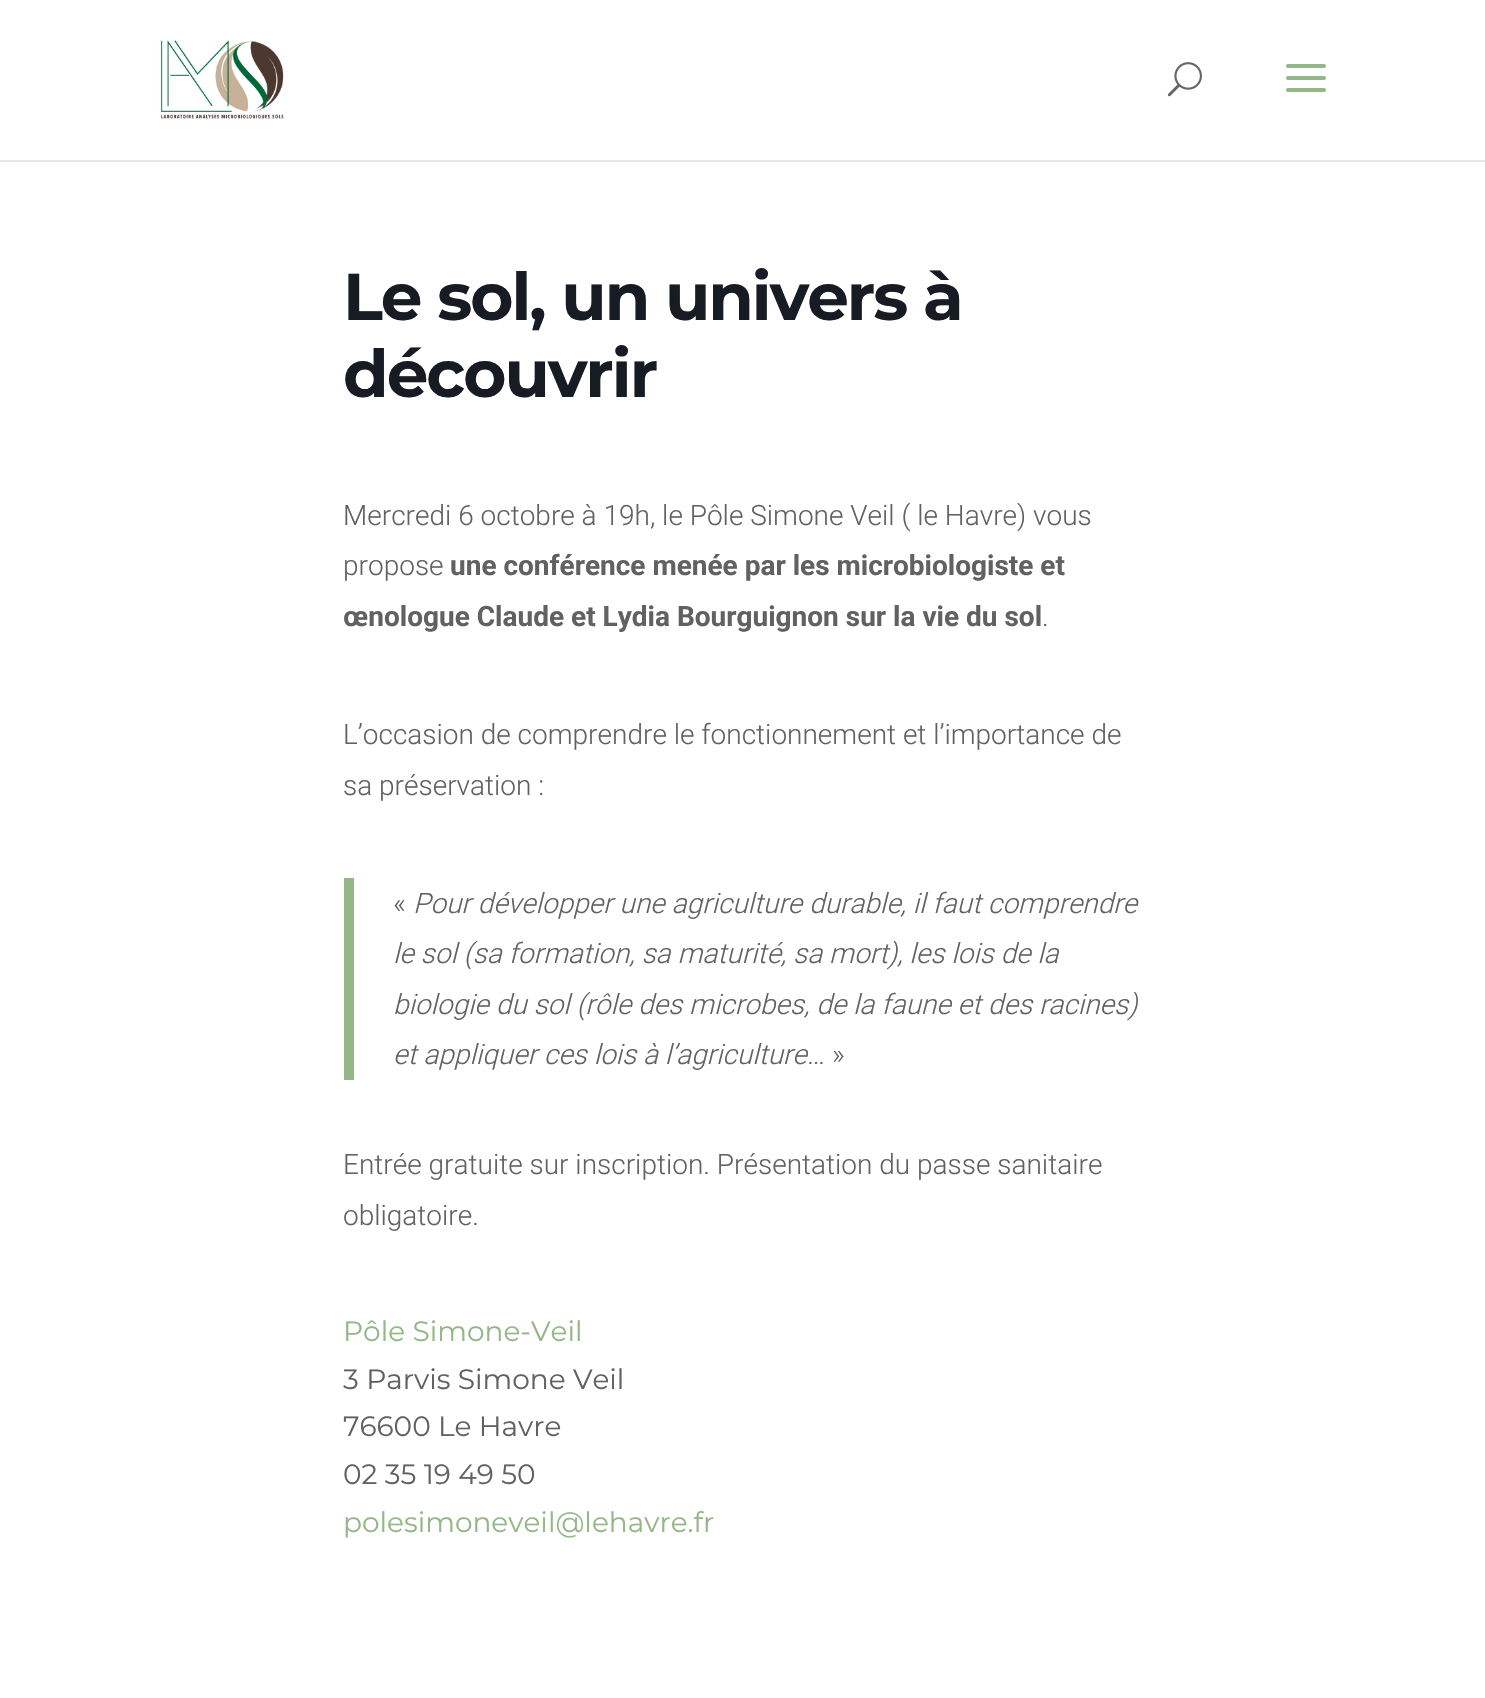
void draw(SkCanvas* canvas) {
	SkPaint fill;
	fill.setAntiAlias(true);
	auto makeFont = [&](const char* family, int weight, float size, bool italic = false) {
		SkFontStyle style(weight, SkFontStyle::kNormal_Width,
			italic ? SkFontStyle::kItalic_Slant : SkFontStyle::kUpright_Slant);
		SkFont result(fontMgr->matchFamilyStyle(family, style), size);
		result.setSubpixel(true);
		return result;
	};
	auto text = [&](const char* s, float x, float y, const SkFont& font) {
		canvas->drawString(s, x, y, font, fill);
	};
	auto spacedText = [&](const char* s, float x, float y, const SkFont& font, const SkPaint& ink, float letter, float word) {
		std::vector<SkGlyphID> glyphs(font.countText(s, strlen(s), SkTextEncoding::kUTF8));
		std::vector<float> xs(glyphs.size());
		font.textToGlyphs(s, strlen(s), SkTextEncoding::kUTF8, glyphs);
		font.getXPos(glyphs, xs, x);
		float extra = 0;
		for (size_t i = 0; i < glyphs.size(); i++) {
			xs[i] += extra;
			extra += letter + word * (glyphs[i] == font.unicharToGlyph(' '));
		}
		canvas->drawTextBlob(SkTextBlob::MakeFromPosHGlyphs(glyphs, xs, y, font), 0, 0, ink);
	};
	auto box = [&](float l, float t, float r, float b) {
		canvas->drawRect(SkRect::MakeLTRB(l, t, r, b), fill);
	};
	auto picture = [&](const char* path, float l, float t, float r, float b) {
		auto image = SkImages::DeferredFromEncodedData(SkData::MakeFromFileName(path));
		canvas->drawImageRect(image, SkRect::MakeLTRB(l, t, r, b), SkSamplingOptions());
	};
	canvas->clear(0xFFFFFFFF);
	fill.setColor(0xFFE6E6E6);
	box(0, 160, 1485, 162);
	picture("image0.png", 161, 40, 284, 119);
	picture("image1.png", 1167, 62, 1202, 97);
	picture("image2.png", 1286, 64, 1326, 92);
	fill.setColor(0xFF93B786);
	box(344, 878, 354, 1080);
	auto font1 = makeFont("Montserrat", 700, 66);
	fill.setColor(0xFF171C24);
	spacedText("Le sol, un univers à", 343, 320, font1, fill, -2, 0);
	spacedText("découvrir", 343, 397, font1, fill, -2, 0);
	auto font2 = makeFont("Roboto", 300, 28);
	fill.setColor(0xFF616161);
	text("Mercredi 6 octobre à 19h, le Pôle Simone Veil ( le Havre) vous", 343, 525, font2);
	text("propose", 343, 575, font2);
	auto font3 = makeFont("Roboto", 700, 28);
	text("une conférence menée par les microbiologiste et", 450, 575, font3);
	text("œnologue Claude et Lydia Bourguignon sur la vie du sol", 343, 626, font3);
	text(".", 1042, 626, font2);
	text("L’occasion de comprendre le fonctionnement et l’importance de", 343, 744, font2);
	text("sa préservation :", 343, 795, font2);
	text("«", 393, 913, font2);
	auto font4 = makeFont("Roboto", 300, 28, true);
	text("Pour développer une agriculture durable, il faut comprendre", 413, 913, font4);
	text("le sol (sa formation, sa maturité, sa mort), les lois de la", 393, 963, font4);
	text("biologie du sol (rôle des microbes, de la faune et des racines)", 393, 1014, font4);
	text("et appliquer ces lois à l’agriculture…", 393, 1064, font4);
	text("»", 832, 1064, font2);
	text("Entrée gratuite sur inscription. Présentation du passe sanitaire", 343, 1174, font2);
	text("obligatoire.", 343, 1225, font2);
	auto font5 = makeFont("Montserrat", 400, 28);
	fill.setColor(0xFF93B786);
	text("Pôle Simone-Veil", 343, 1341, font5);
	fill.setColor(0xFF616161);
	text("3 Parvis Simone Veil", 343, 1389, font5);
	text("76600 Le Havre", 343, 1436, font5);
	text("02 35 19 49 50", 343, 1484, font5);
	fill.setColor(0xFF93B786);
	text("polesimoneveil@lehavre.fr", 343, 1532, font5);
}
